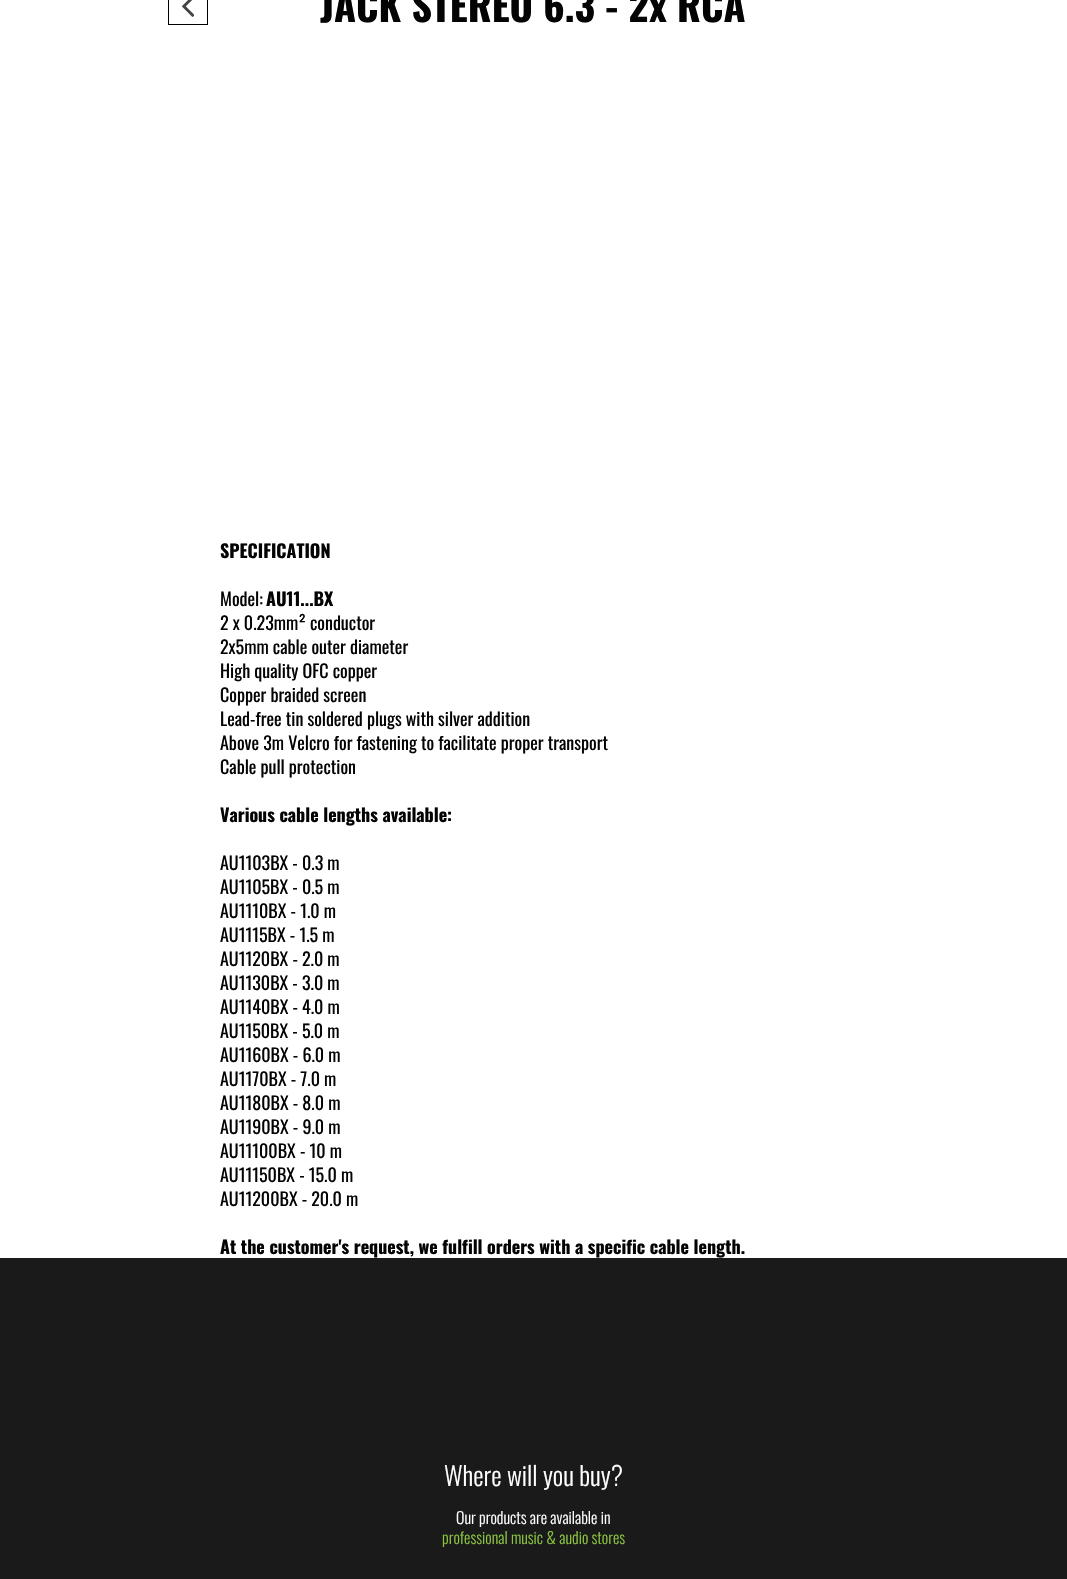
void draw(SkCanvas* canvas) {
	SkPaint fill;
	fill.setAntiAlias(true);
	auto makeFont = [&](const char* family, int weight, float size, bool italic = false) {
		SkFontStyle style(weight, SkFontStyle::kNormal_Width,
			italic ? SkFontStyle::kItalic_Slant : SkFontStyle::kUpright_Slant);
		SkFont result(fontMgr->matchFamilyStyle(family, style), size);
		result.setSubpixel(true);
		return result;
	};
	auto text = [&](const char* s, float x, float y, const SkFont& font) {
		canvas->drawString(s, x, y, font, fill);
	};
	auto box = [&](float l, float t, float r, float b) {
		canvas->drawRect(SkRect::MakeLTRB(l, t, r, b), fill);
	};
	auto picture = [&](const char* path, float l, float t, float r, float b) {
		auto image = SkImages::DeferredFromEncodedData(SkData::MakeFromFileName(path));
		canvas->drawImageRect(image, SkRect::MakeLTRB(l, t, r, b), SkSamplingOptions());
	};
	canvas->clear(0xFFFFFFFF);
	fill.setStyle(SkPaint::kStroke_Style);
	fill.setStrokeWidth(1);
	fill.setColor(0xFF000000);
	canvas->drawRect(SkRect::MakeLTRB(168.5f, -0.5f, 207.5f, 24.5f), fill);
	picture("image0.png", 182, 0, 194, 17);
	fill.setStyle(SkPaint::kFill_Style);
	fill.setColor(0xFF1A1A1A);
	box(0, 1258, 1067, 1579);
	auto font1 = makeFont("Oswald", 700, 40);
	fill.setColor(0xFF030303);
	text("JACK STEREO 6.3 - 2x RCA", 320, 22, font1);
	auto font2 = makeFont("Oswald", 700, 18);
	text("SPECIFICATION", 220, 558, font2);
	auto font3 = makeFont("Oswald", 400, 18);
	text("Model:", 220, 606, font3);
	text("AU11...BX", 266, 606, font2);
	text("2 x 0.23mm² conductor", 220, 630, font3);
	text("2x5mm cable outer diameter", 220, 654, font3);
	text("High quality OFC copper", 220, 678, font3);
	text("Copper braided screen", 220, 702, font3);
	text("Lead-free tin soldered plugs with silver addition", 220, 726, font3);
	text("Above 3m Velcro for fastening to facilitate proper transport", 220, 750, font3);
	text("Cable pull protection", 220, 774, font3);
	text("Various cable lengths available:", 220, 822, font2);
	text("AU1103BX - 0.3 m", 220, 870, font3);
	text("AU1105BX - 0.5 m", 220, 894, font3);
	text("AU1110BX - 1.0 m", 220, 918, font3);
	text("AU1115BX - 1.5 m", 220, 942, font3);
	text("AU1120BX - 2.0 m", 220, 966, font3);
	text("AU1130BX - 3.0 m", 220, 990, font3);
	text("AU1140BX - 4.0 m", 220, 1014, font3);
	text("AU1150BX - 5.0 m", 220, 1038, font3);
	text("AU1160BX - 6.0 m", 220, 1062, font3);
	text("AU1170BX - 7.0 m", 220, 1086, font3);
	text("AU1180BX - 8.0 m", 220, 1110, font3);
	text("AU1190BX - 9.0 m", 220, 1134, font3);
	text("AU11100BX - 10 m", 220, 1158, font3);
	text("AU11150BX - 15.0 m", 220, 1182, font3);
	text("AU11200BX - 20.0 m", 220, 1206, font3);
	text("At the customer's request, we fulfill orders with a specific cable length.", 220, 1254, font2);
	auto font4 = makeFont("Oswald", 300, 26);
	fill.setColor(0xFFFFFFFF);
	text("Where will you buy?", 444, 1486, font4);
	auto font5 = makeFont("Oswald", 300, 16);
	text("Our products are available in", 456, 1524, font5);
	fill.setColor(0xFF8BC53F);
	text("professional music & audio stores", 442, 1544, font5);
}
